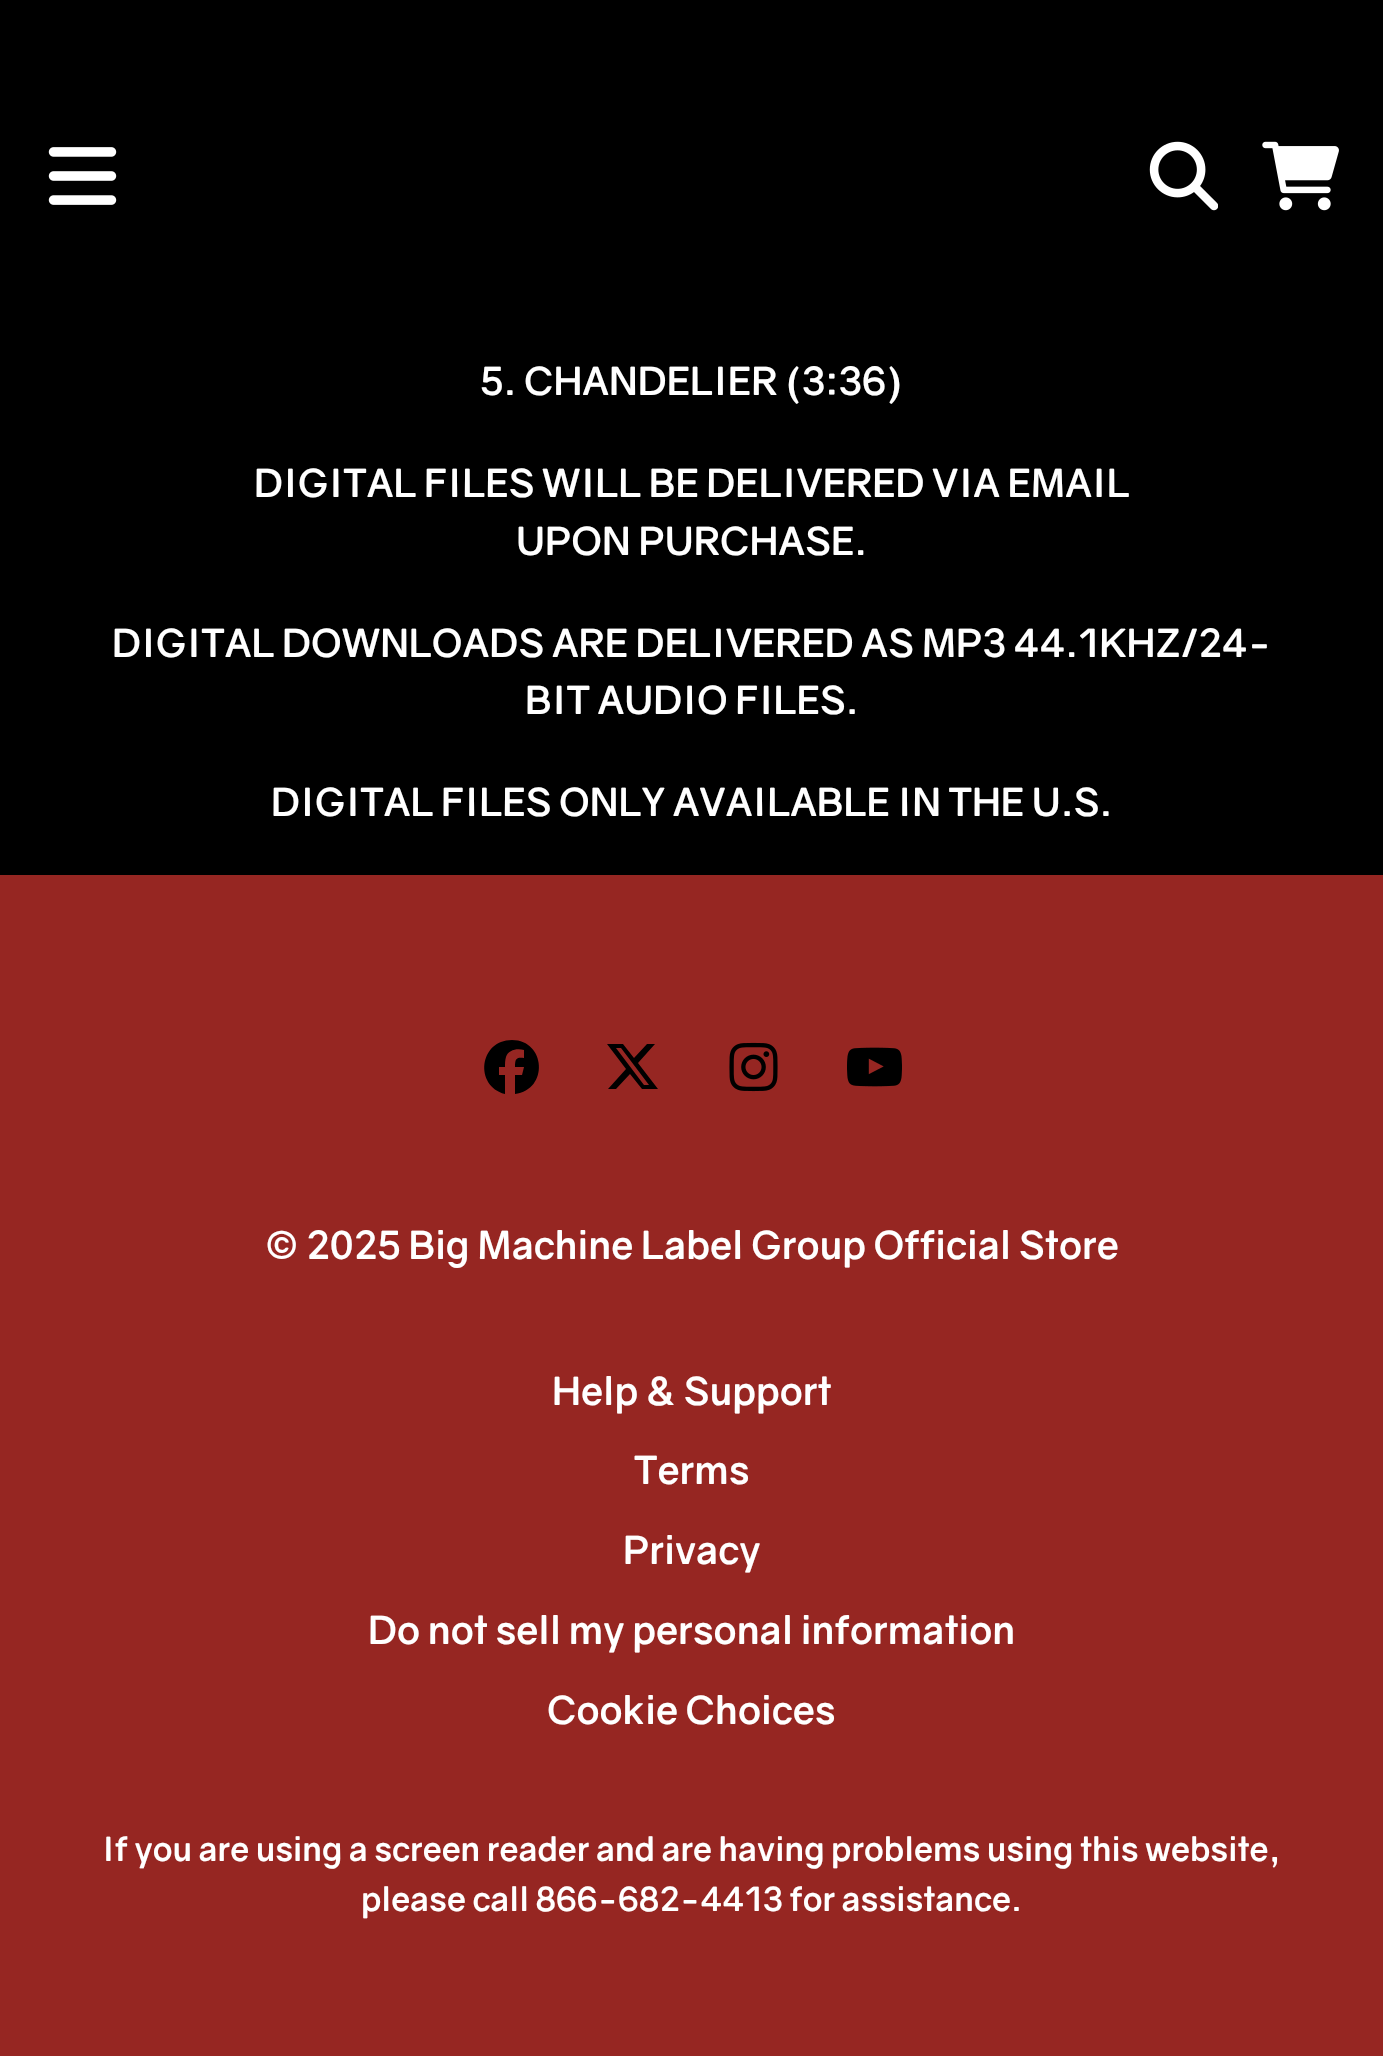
void draw(SkCanvas* canvas) {
	SkPaint fill;
	fill.setAntiAlias(true);
	auto makeFont = [&](const char* family, int weight, float size, bool italic = false) {
		SkFontStyle style(weight, SkFontStyle::kNormal_Width,
			italic ? SkFontStyle::kItalic_Slant : SkFontStyle::kUpright_Slant);
		SkFont result(fontMgr->matchFamilyStyle(family, style), size);
		result.setSubpixel(true);
		return result;
	};
	auto text = [&](const char* s, float x, float y, const SkFont& font) {
		canvas->drawString(s, x, y, font, fill);
	};
	auto box = [&](float l, float t, float r, float b) {
		canvas->drawRect(SkRect::MakeLTRB(l, t, r, b), fill);
	};
	auto picture = [&](const char* path, float l, float t, float r, float b) {
		auto image = SkImages::DeferredFromEncodedData(SkData::MakeFromFileName(path));
		canvas->drawImageRect(image, SkRect::MakeLTRB(l, t, r, b), SkSamplingOptions());
	};
	canvas->clear(0xFF000000);
	picture("image0.png", 48, 147, 117, 205);
	picture("image1.png", 1149, 141, 1218, 211);
	picture("image2.png", 1262, 141, 1339, 211);
	fill.setColor(0xFF962622);
	box(0, 875, 1383, 2056);
	fill.setColor(0xFF000000);
	canvas->drawPath(SkPathBuilder().moveTo(512, 1040).cubicTo(479, 1040, 474, 1086, 505, 1094).lineTo(505, 1075).lineTo(499, 1075).lineTo(499, 1067).lineTo(505, 1067).cubicTo(505, 1064, 505, 1060, 506, 1057).cubicTo(508, 1050, 517, 1048, 524, 1050).lineTo(524, 1058).cubicTo(516, 1057, 515, 1059, 515, 1067).lineTo(524, 1067).lineTo(522, 1075).lineTo(515, 1075).lineTo(515, 1094).cubicTo(549, 1090, 546, 1040, 512, 1040).close().detach(), fill);
	canvas->drawPath(SkPathBuilder().moveTo(647, 1044).lineTo(655, 1044).lineTo(638, 1063).lineTo(658, 1089).lineTo(642, 1089).lineTo(630, 1074).lineTo(616, 1089).lineTo(608, 1089).lineTo(626, 1069).lineTo(607, 1044).lineTo(623, 1044).lineTo(634, 1058).close().moveTo(644, 1085).lineTo(649, 1085).lineTo(621, 1048).lineTo(616, 1048).close().detach(), fill);
	picture("image3.png", 729, 1042, 778, 1092);
	picture("image4.png", 847, 1047, 902, 1087);
	auto font1 = makeFont("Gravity", 700, 38.5f);
	fill.setColor(0xFFFFFFFF);
	text("5. CHANDELIER (3:36)", 480, 395, font1);
	text("DIGITAL FILES WILL BE DELIVERED VIA EMAIL", 254, 497, font1);
	text("UPON PURCHASE.", 516, 555, font1);
	text("DIGITAL DOWNLOADS ARE DELIVERED AS MP3 44.1KHZ/24-", 112, 657, font1);
	text("BIT AUDIO FILES.", 525, 714, font1);
	text("DIGITAL FILES ONLY AVAILABLE IN THE U.S.", 271, 816, font1);
	text("© 2025 Big Machine Label Group Official Store", 265, 1259, font1);
	text("Help & Support", 552, 1405, font1);
	text("Terms", 634, 1484, font1);
	text("Privacy", 623, 1564, font1);
	text("Do not sell my personal information", 368, 1644, font1);
	text("Cookie Choices", 547, 1724, font1);
	auto font2 = makeFont("Gravity", 700, 33);
	text("If you are using a screen reader and are having problems using this website,", 102, 1861, font2);
	text("please call 866-682-4413 for assistance.", 361, 1911, font2);
}
